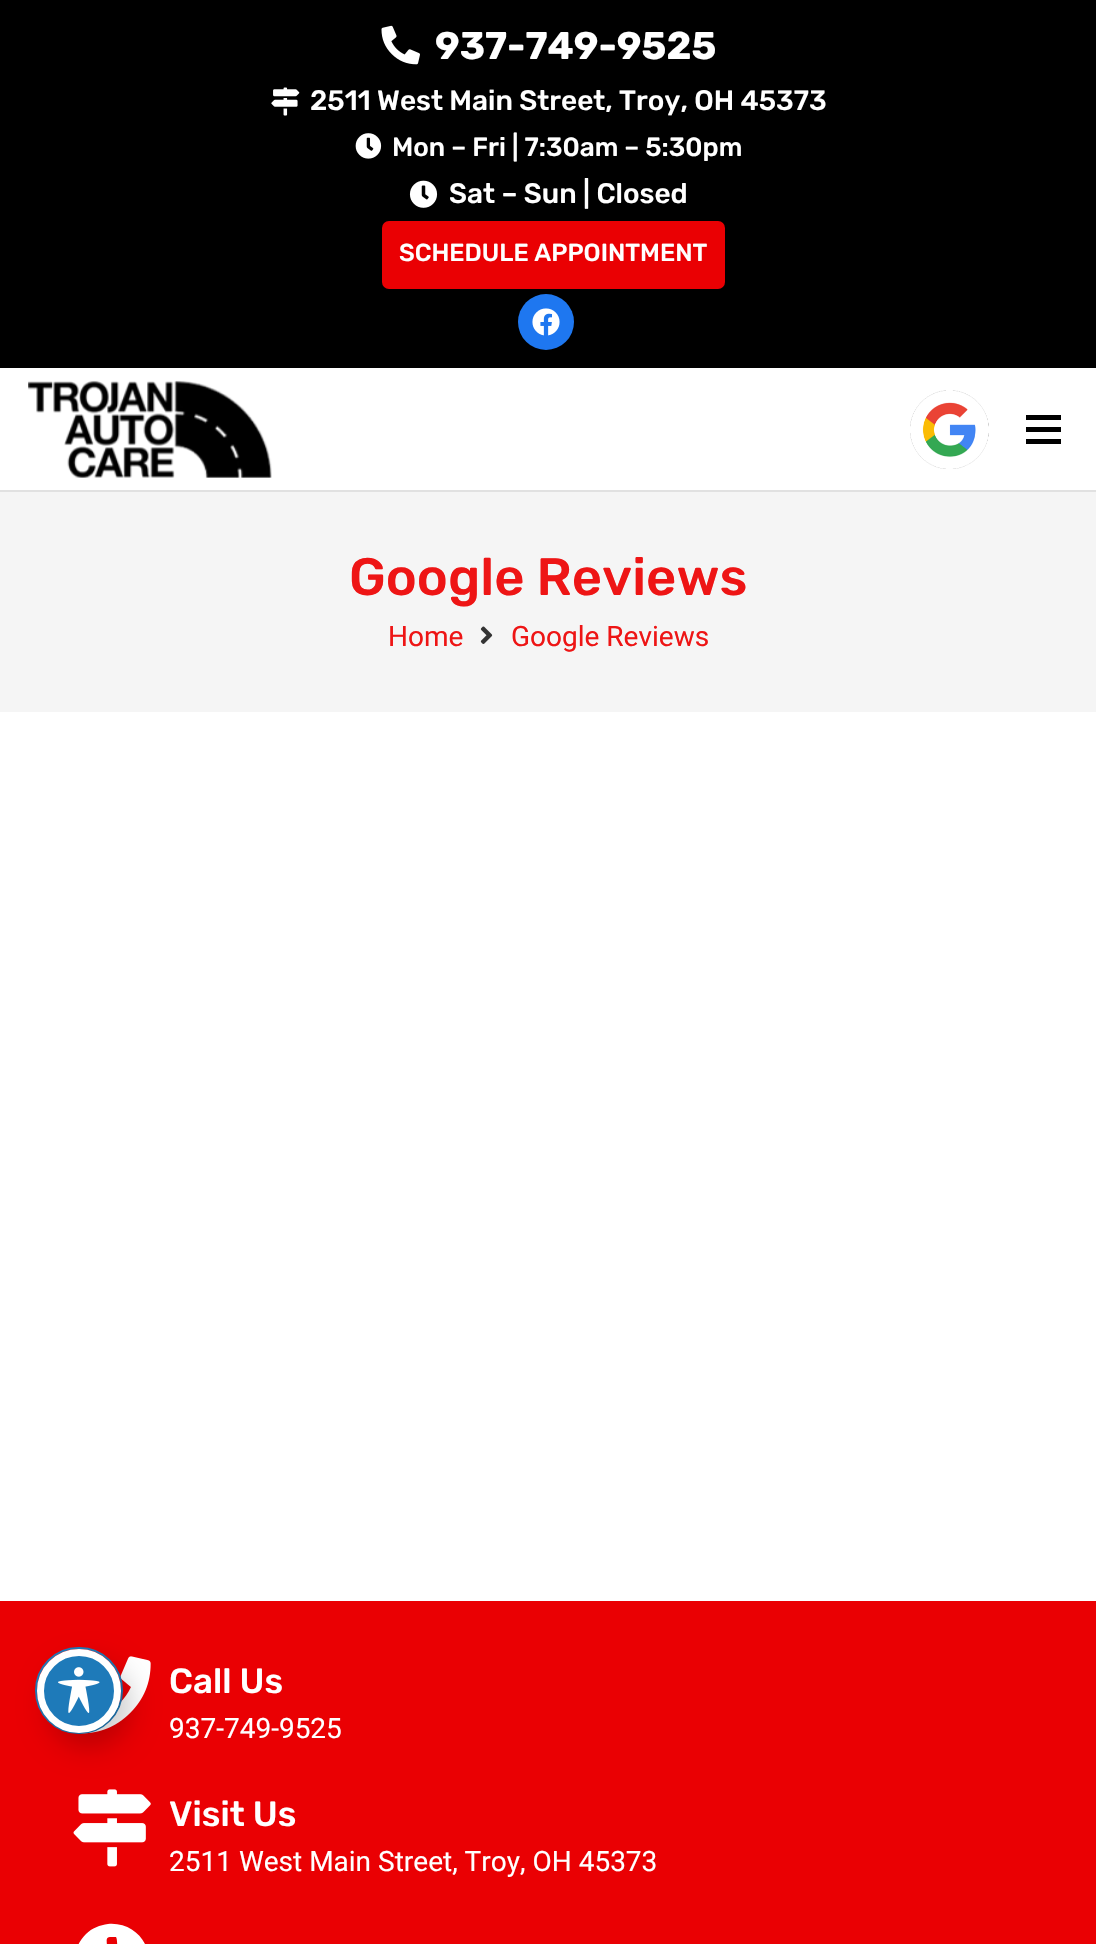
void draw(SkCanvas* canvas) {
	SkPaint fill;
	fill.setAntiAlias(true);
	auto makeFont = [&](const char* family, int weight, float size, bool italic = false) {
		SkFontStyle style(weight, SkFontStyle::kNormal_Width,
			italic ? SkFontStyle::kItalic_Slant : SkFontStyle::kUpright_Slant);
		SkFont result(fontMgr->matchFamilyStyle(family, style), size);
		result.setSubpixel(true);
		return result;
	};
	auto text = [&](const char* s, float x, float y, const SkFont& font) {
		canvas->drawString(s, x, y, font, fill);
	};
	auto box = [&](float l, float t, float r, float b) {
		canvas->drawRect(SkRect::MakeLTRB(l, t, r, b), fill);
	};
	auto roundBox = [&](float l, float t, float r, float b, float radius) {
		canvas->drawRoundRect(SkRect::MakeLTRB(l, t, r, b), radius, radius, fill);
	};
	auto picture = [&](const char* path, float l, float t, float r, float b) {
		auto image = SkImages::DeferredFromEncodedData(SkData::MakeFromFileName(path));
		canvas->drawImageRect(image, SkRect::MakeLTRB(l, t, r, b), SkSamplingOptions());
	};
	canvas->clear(0xFFFFFFFF);
	fill.setColor(0xFF000000);
	box(0, 0, 1096, 368);
	picture("image0.png", 381, 25, 420, 65);
	picture("image1.png", 271, 87, 300, 116);
	picture("image2.png", 355, 133, 382, 159);
	picture("image3.png", 409, 180, 438, 208);
	fill.setColor(0xFFEA0003);
	roundBox(382, 221, 725, 289, 7);
	fill.setColor(0xFF1E77F0);
	canvas->drawCircle(546, 322, 28, fill);
	picture("image4.png", 532, 308, 560, 336);
	fill.setColor(0xFFE1E1E1);
	box(0, 490, 1096, 492);
	picture("image5.png", 28, 380, 272, 478);
	picture("image6.png", 910, 390, 989, 469);
	fill.setColor(0xFF000000);
	box(1026, 427, 1061, 432);
	box(1026, 415, 1061, 420);
	box(1026, 439, 1061, 444);
	fill.setColor(0xFFF5F5F5);
	box(0, 492, 1096, 712);
	picture("image7.png", 480, 626, 493, 644);
	fill.setColor(0xFFEA0003);
	box(0, 1601, 1096, 1944);
	picture("image9.png", 80, 1656, 151, 1734);
	fill.setStyle(SkPaint::kStroke_Style);
	fill.setStrokeWidth(2);
	fill.setColor(0xFF1E7AB9);
	canvas->drawRoundRect(SkRect::MakeLTRB(36, 1648, 122, 1733), 42.5f, 42.5f, fill);
	picture("image10.png", 73, 1789, 151, 1867);
	fill.setStyle(SkPaint::kFill_Style);
	fill.setColor(0x33000000);
	fill.setMaskFilter(SkMaskFilter::MakeBlur(kNormal_SkBlurStyle, 14));
	canvas->drawRoundRect(SkRect::MakeLTRB(47, 1663, 131, 1747), 42, 42, fill);
	fill.setMaskFilter(nullptr);
	fill.setColor(0xFF1E7AB9);
	canvas->drawCircle(79, 1691, 38.5f, fill);
	fill.setStyle(SkPaint::kStroke_Style);
	fill.setStrokeWidth(7);
	fill.setColor(0xFFFFFFFF);
	canvas->drawCircle(79, 1691, 38.5f, fill);
	picture("image8.png", 58, 1667, 100, 1713);
	fill.setStyle(SkPaint::kFill_Style);
	canvas->drawPath(SkPathBuilder().moveTo(86, 1934).cubicTo(92, 1928, 100, 1925, 108, 1924).cubicTo(143, 1921, 163, 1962, 138, 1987).cubicTo(114, 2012, 72, 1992, 75, 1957).cubicTo(76, 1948, 79, 1941, 86, 1934).close().moveTo(126, 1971).cubicTo(129, 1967, 118, 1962, 117, 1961).cubicTo(117, 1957, 118, 1939, 116, 1937).lineTo(111, 1937).cubicTo(105, 1937, 107, 1941, 107, 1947).cubicTo(107, 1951, 106, 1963, 108, 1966).lineTo(116, 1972).cubicTo(122, 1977, 121, 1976, 126, 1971).close().detach(), fill);
	auto font1 = makeFont("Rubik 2", 300, 38.5f);
	text("937-749-9525", 435, 59, font1);
	auto font2 = makeFont("Rubik", 300, 28);
	text("2511 West Main Street, Troy, OH 45373", 310, 110, font2);
	auto font3 = makeFont("Rubik", 300, 26.25f);
	text("Mon – Fri | 7:30am – 5:30pm", 392, 156, font3);
	text("Sat – Sun | Closed", 449, 203, font2);
	auto font4 = makeFont("Rubik", 300, 24.5f);
	text("SCHEDULE APPOINTMENT", 399, 261, font4);
	auto font5 = makeFont("Rubik", 300, 52.5f);
	fill.setColor(0xFFEE1515);
	text("Google Reviews", 349, 595, font5);
	auto font6 = makeFont("Roboto", 400, 28);
	text("Home", 388, 646, font6);
	text("Google Reviews", 511, 646, font6);
	auto font7 = makeFont("Rubik", 300, 35);
	fill.setColor(0xFFFFFFFF);
	text("Call Us", 169, 1693, font7);
	text("937-749-9525", 169, 1738, font6);
	text("Visit Us", 169, 1826, font7);
	text("2511 West Main Street, Troy, OH 45373", 169, 1871, font6);
}
